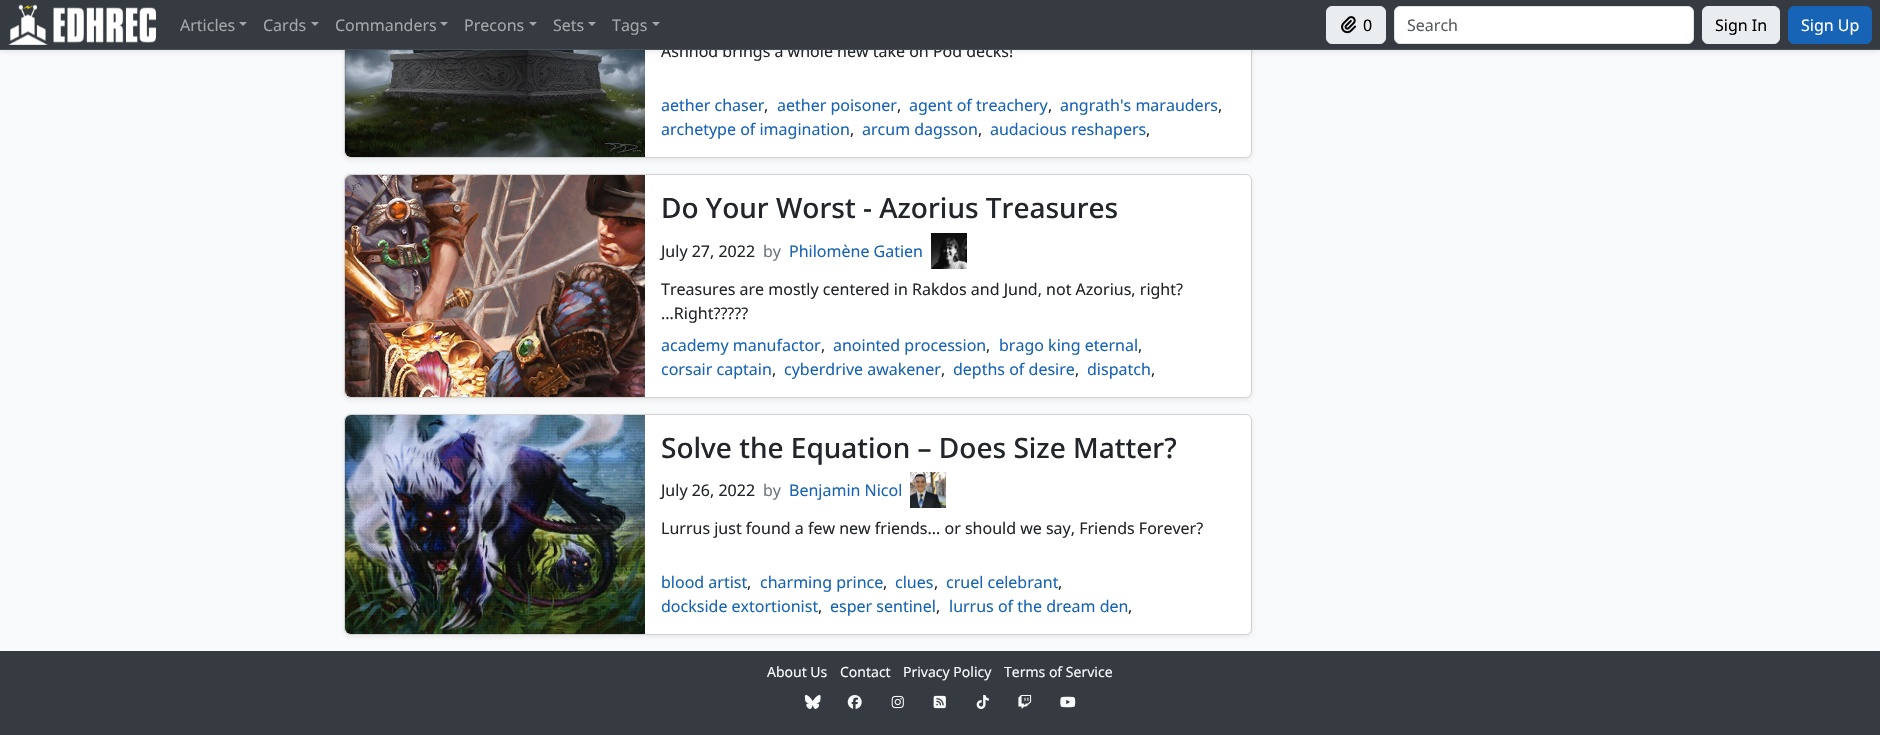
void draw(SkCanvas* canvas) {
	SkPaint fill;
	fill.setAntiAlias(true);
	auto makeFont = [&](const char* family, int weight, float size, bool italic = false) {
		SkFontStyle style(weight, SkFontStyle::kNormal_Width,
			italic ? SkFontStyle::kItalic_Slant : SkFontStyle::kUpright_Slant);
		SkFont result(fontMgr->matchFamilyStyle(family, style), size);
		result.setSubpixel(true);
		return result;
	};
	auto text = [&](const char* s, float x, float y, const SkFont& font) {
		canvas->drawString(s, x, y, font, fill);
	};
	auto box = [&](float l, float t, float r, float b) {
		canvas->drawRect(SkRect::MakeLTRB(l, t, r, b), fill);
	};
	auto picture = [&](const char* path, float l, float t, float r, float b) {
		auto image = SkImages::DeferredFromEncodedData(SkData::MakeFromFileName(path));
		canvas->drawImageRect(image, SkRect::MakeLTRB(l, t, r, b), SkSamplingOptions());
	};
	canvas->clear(0xFFF9FAFB);
	fill.setColor(0x12000000);
	fill.setMaskFilter(SkMaskFilter::MakeBlur(kNormal_SkBlurStyle, 2));
	canvas->drawRoundRect(SkRect::MakeLTRB(344, -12, 1252, 160), 6, 6, fill);
	fill.setMaskFilter(nullptr);
	fill.setColor(0xFFFFFFFF);
	canvas->drawRoundRect(SkRect::MakeLTRB(344.5f, -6.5f, 1251.5f, 157.5f), 5.5f, 5.5f, fill);
	fill.setStyle(SkPaint::kStroke_Style);
	fill.setStrokeWidth(1);
	fill.setColor(0xFFD2D2D2);
	canvas->drawRoundRect(SkRect::MakeLTRB(344.5f, -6.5f, 1251.5f, 157.5f), 5.5f, 5.5f, fill);
	picture("image2.png", 345, 50, 645, 157);
	fill.setStyle(SkPaint::kFill_Style);
	fill.setColor(0x12000000);
	fill.setMaskFilter(SkMaskFilter::MakeBlur(kNormal_SkBlurStyle, 2));
	canvas->drawRect(SkRect::MakeLTRB(0, 2, 1880, 52), fill);
	fill.setMaskFilter(nullptr);
	fill.setMaskFilter(SkMaskFilter::MakeBlur(kNormal_SkBlurStyle, 2));
	canvas->drawRoundRect(SkRect::MakeLTRB(344, 176, 1252, 400), 6, 6, fill);
	fill.setMaskFilter(nullptr);
	fill.setColor(0xFFFFFFFF);
	canvas->drawRoundRect(SkRect::MakeLTRB(344.5f, 174.5f, 1251.5f, 397.5f), 5.5f, 5.5f, fill);
	fill.setStyle(SkPaint::kStroke_Style);
	fill.setColor(0xFFD2D2D2);
	canvas->drawRoundRect(SkRect::MakeLTRB(344.5f, 174.5f, 1251.5f, 397.5f), 5.5f, 5.5f, fill);
	picture("image3.png", 345, 175, 645, 397);
	picture("image4.png", 931, 233, 967, 269);
	fill.setStyle(SkPaint::kFill_Style);
	fill.setColor(0x12000000);
	fill.setMaskFilter(SkMaskFilter::MakeBlur(kNormal_SkBlurStyle, 2));
	canvas->drawRoundRect(SkRect::MakeLTRB(344, 416, 1252, 637), 6, 6, fill);
	fill.setMaskFilter(nullptr);
	fill.setColor(0xFFFFFFFF);
	canvas->drawRoundRect(SkRect::MakeLTRB(344.5f, 414.5f, 1251.5f, 634.5f), 5.5f, 5.5f, fill);
	fill.setStyle(SkPaint::kStroke_Style);
	fill.setColor(0xFFD2D2D2);
	canvas->drawRoundRect(SkRect::MakeLTRB(344.5f, 414.5f, 1251.5f, 634.5f), 5.5f, 5.5f, fill);
	picture("image5.png", 345, 415, 645, 634);
	picture("image6.png", 910, 472, 946, 508);
	fill.setStyle(SkPaint::kFill_Style);
	fill.setColor(0xFF353B41);
	box(0, 651, 1880, 735);
	picture("image7.png", 804, 695, 821, 709);
	picture("image8.png", 847, 695, 862, 709);
	picture("image9.png", 891, 695, 904, 709);
	picture("image10.png", 933, 695, 946, 709);
	picture("image11.png", 976, 695, 989, 709);
	picture("image12.png", 1018, 695, 1032, 709);
	picture("image13.png", 1060, 696, 1076, 708);
	auto font1 = makeFont("Noto Sans", 400, 16);
	fill.setColor(0xFF22262A);
	text("Ashnod brings a whole new take on Pod decks!", 661, 57, font1);
	fill.setColor(0xFF353B41);
	box(0, 0, 1880, 49);
	fill.setColor(0xFFFFFFFF);
	canvas->drawRoundRect(SkRect::MakeLTRB(1394.5f, 6.5f, 1693.5f, 43.5f), 5.5f, 5.5f, fill);
	fill.setStyle(SkPaint::kStroke_Style);
	fill.setColor(0xFFDFE3E7);
	canvas->drawRoundRect(SkRect::MakeLTRB(1394.5f, 6.5f, 1693.5f, 43.5f), 5.5f, 5.5f, fill);
	fill.setStyle(SkPaint::kFill_Style);
	fill.setColor(0xFF595C5F);
	text("Search", 1407, 31, font1);
	fill.setColor(0xFFA4A7AA);
	canvas->drawPath(SkPathBuilder().moveTo(652, 22).lineTo(660, 22).lineTo(656, 26).close().detach(), fill);
	text("Tags", 612, 31, font1);
	canvas->drawPath(SkPathBuilder().moveTo(588, 22).lineTo(596, 22).lineTo(592, 26).close().detach(), fill);
	text("Sets", 553, 31, font1);
	canvas->drawPath(SkPathBuilder().moveTo(529, 22).lineTo(537, 22).lineTo(533, 26).close().detach(), fill);
	text("Precons", 464, 31, font1);
	canvas->drawPath(SkPathBuilder().moveTo(440, 22).lineTo(448, 22).lineTo(444, 26).close().detach(), fill);
	text("Commanders", 335, 31, font1);
	canvas->drawPath(SkPathBuilder().moveTo(311, 22).lineTo(319, 22).lineTo(315, 26).close().detach(), fill);
	text("Cards", 263, 31, font1);
	canvas->drawPath(SkPathBuilder().moveTo(239, 22).lineTo(247, 22).lineTo(243, 26).close().detach(), fill);
	text("Articles", 180, 31, font1);
	fill.setColor(0xFFEAEDF0);
	canvas->drawRoundRect(SkRect::MakeLTRB(1326.5f, 6.5f, 1385.5f, 43.5f), 5.5f, 5.5f, fill);
	fill.setStyle(SkPaint::kStroke_Style);
	canvas->drawRoundRect(SkRect::MakeLTRB(1326.5f, 6.5f, 1385.5f, 43.5f), 5.5f, 5.5f, fill);
	picture("image1.png", 1341, 16, 1357, 34);
	fill.setStyle(SkPaint::kFill_Style);
	fill.setColor(0xFF1763B5);
	canvas->drawRoundRect(SkRect::MakeLTRB(1788.5f, 6.5f, 1871.5f, 43.5f), 5.5f, 5.5f, fill);
	fill.setStyle(SkPaint::kStroke_Style);
	canvas->drawRoundRect(SkRect::MakeLTRB(1788.5f, 6.5f, 1871.5f, 43.5f), 5.5f, 5.5f, fill);
	fill.setStyle(SkPaint::kFill_Style);
	fill.setColor(0xFFFFFFFF);
	text("Sign Up", 1801, 31, font1);
	fill.setColor(0xFFEAEDF0);
	canvas->drawRoundRect(SkRect::MakeLTRB(1702.5f, 6.5f, 1779.5f, 43.5f), 5.5f, 5.5f, fill);
	fill.setStyle(SkPaint::kStroke_Style);
	canvas->drawRoundRect(SkRect::MakeLTRB(1702.5f, 6.5f, 1779.5f, 43.5f), 5.5f, 5.5f, fill);
	fill.setStyle(SkPaint::kFill_Style);
	fill.setColor(0xFF000000);
	text("Sign In", 1715, 31, font1);
	text("0", 1363, 31, font1);
	picture("image0.png", 8, 4, 156, 45);
	fill.setColor(0xFF484F56);
	box(0, 49, 1880, 50);
	fill.setColor(0xFF1763B5);
	text("aether chaser", 661, 111, font1);
	fill.setColor(0xFF22262A);
	text(",", 764, 111, font1);
	fill.setColor(0xFF1763B5);
	text("aether poisoner", 777, 111, font1);
	fill.setColor(0xFF22262A);
	text(",", 897, 111, font1);
	fill.setColor(0xFF1763B5);
	text("agent of treachery", 909, 111, font1);
	fill.setColor(0xFF22262A);
	text(",", 1048, 111, font1);
	fill.setColor(0xFF1763B5);
	text("angrath's marauders", 1060, 111, font1);
	fill.setColor(0xFF22262A);
	text(",", 1218, 111, font1);
	fill.setColor(0xFF1763B5);
	text("archetype of imagination", 661, 135, font1);
	fill.setColor(0xFF22262A);
	text(",", 850, 135, font1);
	fill.setColor(0xFF1763B5);
	text("arcum dagsson", 862, 135, font1);
	fill.setColor(0xFF22262A);
	text(",", 978, 135, font1);
	fill.setColor(0xFF1763B5);
	text("audacious reshapers", 990, 135, font1);
	fill.setColor(0xFF22262A);
	text(",", 1146, 135, font1);
	auto font2 = makeFont("Noto Sans", 500, 28);
	text("Do Your Worst - Azorius Treasures", 661, 218, font2);
	text("July 27, 2022", 661, 257, font1);
	fill.setColor(0xFF6D767E);
	text("by", 763, 257, font1);
	fill.setColor(0xFF1763B5);
	text("Philomène Gatien", 789, 257, font1);
	fill.setColor(0xFF22262A);
	text("Treasures are mostly centered in Rakdos and Jund, not Azorius, right?", 661, 295, font1);
	text("...Right?\077?\077?", 661, 319, font1);
	fill.setColor(0xFF1763B5);
	text("academy manufactor", 661, 351, font1);
	fill.setColor(0xFF22262A);
	text(",", 821, 351, font1);
	fill.setColor(0xFF1763B5);
	text("anointed procession", 833, 351, font1);
	fill.setColor(0xFF22262A);
	text(",", 986, 351, font1);
	fill.setColor(0xFF1763B5);
	text("brago king eternal", 999, 351, font1);
	fill.setColor(0xFF22262A);
	text(",", 1138, 351, font1);
	fill.setColor(0xFF1763B5);
	text("corsair captain", 661, 375, font1);
	fill.setColor(0xFF22262A);
	text(",", 772, 375, font1);
	fill.setColor(0xFF1763B5);
	text("cyberdrive awakener", 784, 375, font1);
	fill.setColor(0xFF22262A);
	text(",", 941, 375, font1);
	fill.setColor(0xFF1763B5);
	text("depths of desire", 953, 375, font1);
	fill.setColor(0xFF22262A);
	text(",", 1075, 375, font1);
	fill.setColor(0xFF1763B5);
	text("dispatch", 1087, 375, font1);
	fill.setColor(0xFF22262A);
	text(",", 1151, 375, font1);
	text("Solve the Equation – Does Size Matter?", 661, 458, font2);
	text("July 26, 2022", 661, 496, font1);
	fill.setColor(0xFF6D767E);
	text("by", 763, 496, font1);
	fill.setColor(0xFF1763B5);
	text("Benjamin Nicol", 789, 496, font1);
	fill.setColor(0xFF22262A);
	text("Lurrus just found a few new friends... or should we say, Friends Forever?", 661, 534, font1);
	fill.setColor(0xFF1763B5);
	text("blood artist", 661, 588, font1);
	fill.setColor(0xFF22262A);
	text(",", 747, 588, font1);
	fill.setColor(0xFF1763B5);
	text("charming prince", 760, 588, font1);
	fill.setColor(0xFF22262A);
	text(",", 883, 588, font1);
	fill.setColor(0xFF1763B5);
	text("clues", 895, 588, font1);
	fill.setColor(0xFF22262A);
	text(",", 934, 588, font1);
	fill.setColor(0xFF1763B5);
	text("cruel celebrant", 946, 588, font1);
	fill.setColor(0xFF22262A);
	text(",", 1058, 588, font1);
	fill.setColor(0xFF1763B5);
	text("dockside extortionist", 661, 612, font1);
	fill.setColor(0xFF22262A);
	text(",", 818, 612, font1);
	fill.setColor(0xFF1763B5);
	text("esper sentinel", 830, 612, font1);
	fill.setColor(0xFF22262A);
	text(",", 936, 612, font1);
	fill.setColor(0xFF1763B5);
	text("lurrus of the dream den", 949, 612, font1);
	fill.setColor(0xFF22262A);
	text(",", 1128, 612, font1);
	auto font3 = makeFont("Noto Sans", 400, 14);
	fill.setColor(0xFFF9FAFB);
	text("About Us", 767, 677, font3);
	text("Contact", 840, 677, font3);
	text("Privacy Policy", 903, 677, font3);
	text("Terms of Service", 1004, 677, font3);
}
